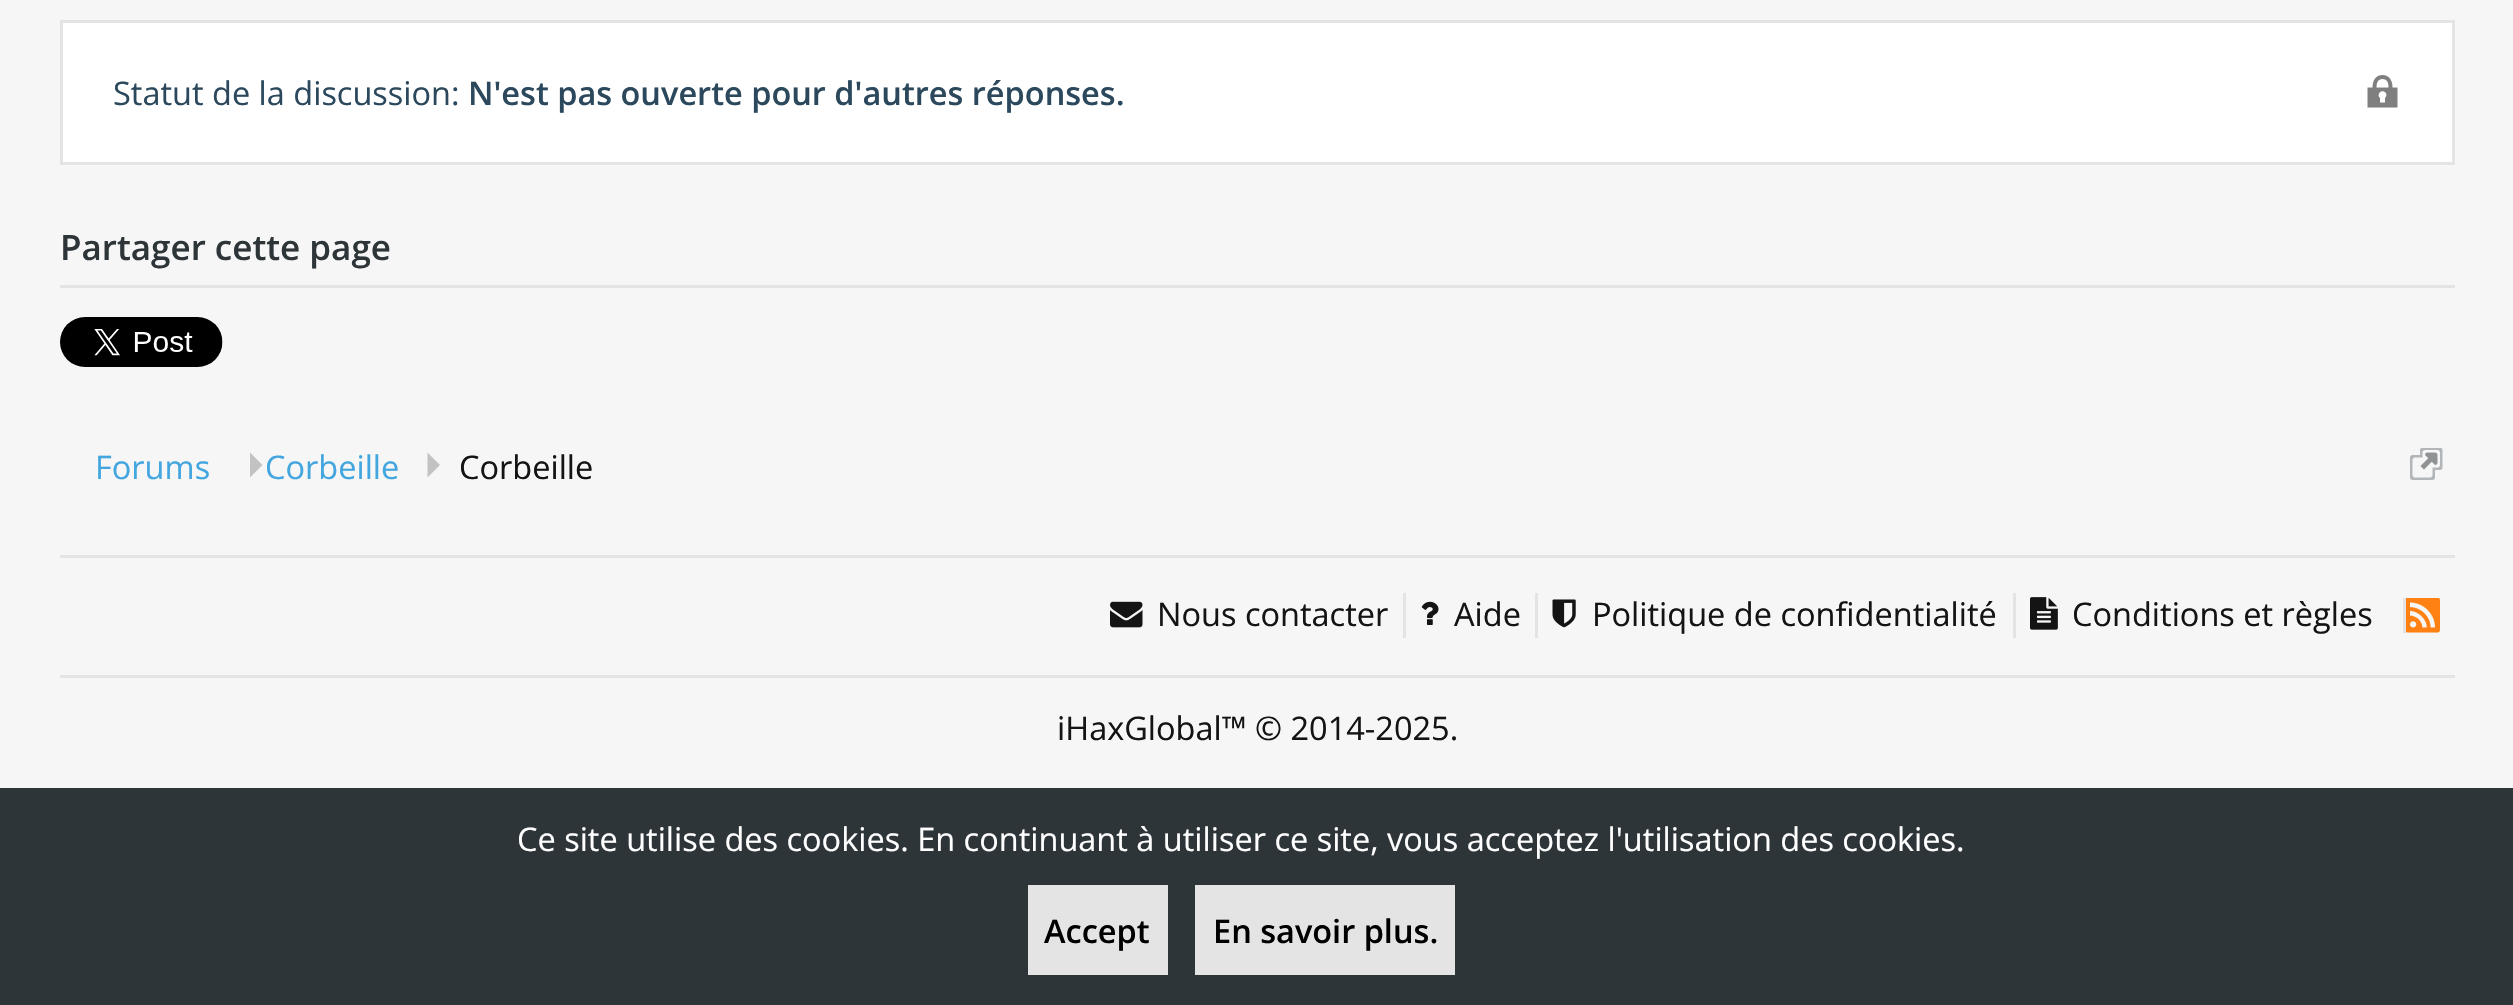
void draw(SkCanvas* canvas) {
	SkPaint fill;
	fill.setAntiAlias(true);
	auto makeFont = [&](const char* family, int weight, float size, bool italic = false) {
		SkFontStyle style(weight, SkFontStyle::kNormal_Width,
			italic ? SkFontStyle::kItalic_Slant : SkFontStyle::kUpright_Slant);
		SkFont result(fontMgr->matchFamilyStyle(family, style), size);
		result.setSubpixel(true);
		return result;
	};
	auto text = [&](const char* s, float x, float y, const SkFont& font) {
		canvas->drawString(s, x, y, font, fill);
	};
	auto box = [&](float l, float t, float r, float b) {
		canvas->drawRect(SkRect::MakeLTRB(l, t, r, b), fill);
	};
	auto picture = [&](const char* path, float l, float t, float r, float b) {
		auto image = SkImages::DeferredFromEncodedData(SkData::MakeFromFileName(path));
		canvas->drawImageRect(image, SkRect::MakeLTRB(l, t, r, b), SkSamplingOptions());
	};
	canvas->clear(0xFFF6F6F6);
	fill.setColor(0xFFFFFFFF);
	canvas->drawRect(SkRect::MakeLTRB(61.5f, 21.5f, 2453.5f, 163.5f), fill);
	fill.setStyle(SkPaint::kStroke_Style);
	fill.setStrokeWidth(3);
	fill.setColor(0xFFE4E4E4);
	canvas->drawRect(SkRect::MakeLTRB(61.5f, 21.5f, 2453.5f, 163.5f), fill);
	picture("image0.png", 2367, 75, 2398, 108);
	fill.setStyle(SkPaint::kFill_Style);
	box(60, 285, 2455, 288);
	picture("image1.png", 60, 317, 223, 367);
	fill.setColor(0xFFC2C2C2);
	canvas->drawPath(SkPathBuilder().moveTo(250, 477.5f).lineTo(250, 452.5f).lineTo(262.5f, 465).close().detach(), fill);
	canvas->drawPath(SkPathBuilder().moveTo(427.5f, 477.5f).lineTo(427.5f, 452.5f).lineTo(440, 465).close().detach(), fill);
	picture("image2.png", 2410, 448, 2443, 480);
	fill.setColor(0xFFE4E4E4);
	box(60, 555, 2455, 558);
	box(60, 675, 2455, 678);
	picture("image3.png", 1110, 601, 1143, 628);
	box(1403, 593, 1406, 638);
	picture("image4.png", 1421, 601, 1439, 625);
	box(1535, 593, 1538, 638);
	picture("image5.png", 1552, 599, 1576, 628);
	box(2013, 593, 2016, 638);
	picture("image6.png", 2030, 597, 2058, 630);
	picture("image7.png", 2406, 598, 2440, 633);
	box(2403, 598, 2406, 633);
	fill.setColor(0xFF2E3539);
	box(0, 788, 2513, 1005);
	fill.setColor(0xFFE4E4E4);
	box(1028, 885, 1168, 975);
	box(1195, 885, 1455, 975);
	auto font1 = makeFont("Open Sans", 400, 32.5f);
	fill.setColor(0xFF2B485C);
	text("Statut de la discussion:", 113, 105, font1);
	auto font2 = makeFont("Open Sans", 600, 32.5f);
	text("N'est pas ouverte pour d'autres réponses.", 468, 105, font2);
	auto font3 = makeFont("Open Sans", 600, 35);
	fill.setColor(0xFF2E3539);
	text("Partager cette page", 60, 260, font3);
	fill.setColor(0xFF43A6DF);
	text("Forums", 95, 479, font1);
	text("Corbeille", 265, 479, font1);
	fill.setColor(0xFF141414);
	text("Corbeille", 459, 479, font1);
	text("Nous contacter", 1157, 626, font1);
	text("Aide", 1454, 626, font1);
	text("Politique de confidentialité", 1592, 626, font1);
	text("Conditions et règles", 2072, 626, font1);
	text("iHaxGlobal™ © 2014-2025.", 1057, 740, font1);
	fill.setColor(0xFFFFFFFF);
	text("Ce site utilise des cookies. En continuant à utiliser ce site, vous acceptez l'utilisation des cookies.", 517, 851, font1);
	fill.setColor(0xFF000000);
	text("Accept", 1044, 943, font2);
	text("En savoir plus.", 1213, 943, font2);
}
